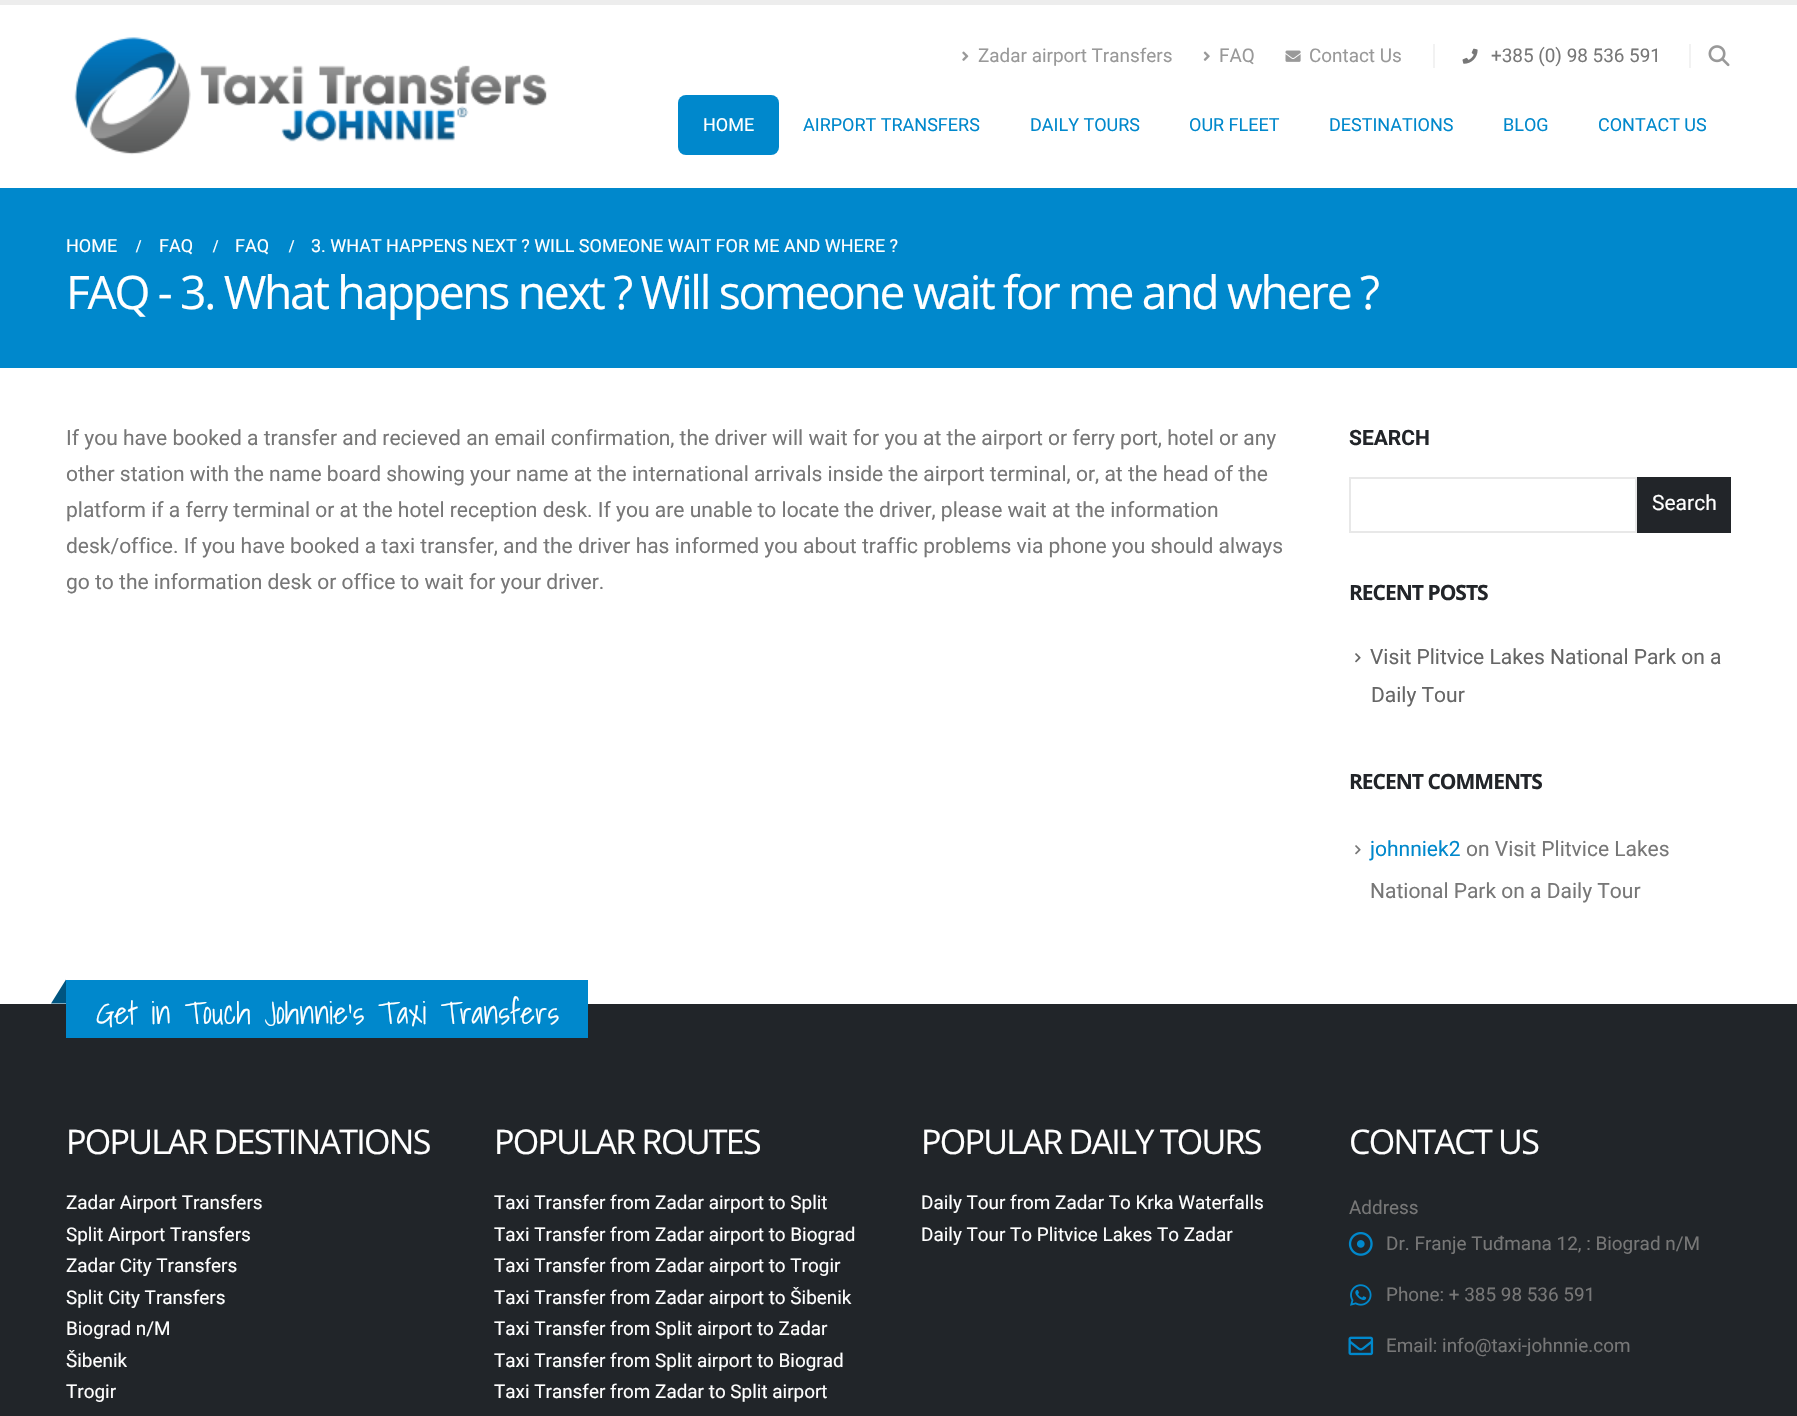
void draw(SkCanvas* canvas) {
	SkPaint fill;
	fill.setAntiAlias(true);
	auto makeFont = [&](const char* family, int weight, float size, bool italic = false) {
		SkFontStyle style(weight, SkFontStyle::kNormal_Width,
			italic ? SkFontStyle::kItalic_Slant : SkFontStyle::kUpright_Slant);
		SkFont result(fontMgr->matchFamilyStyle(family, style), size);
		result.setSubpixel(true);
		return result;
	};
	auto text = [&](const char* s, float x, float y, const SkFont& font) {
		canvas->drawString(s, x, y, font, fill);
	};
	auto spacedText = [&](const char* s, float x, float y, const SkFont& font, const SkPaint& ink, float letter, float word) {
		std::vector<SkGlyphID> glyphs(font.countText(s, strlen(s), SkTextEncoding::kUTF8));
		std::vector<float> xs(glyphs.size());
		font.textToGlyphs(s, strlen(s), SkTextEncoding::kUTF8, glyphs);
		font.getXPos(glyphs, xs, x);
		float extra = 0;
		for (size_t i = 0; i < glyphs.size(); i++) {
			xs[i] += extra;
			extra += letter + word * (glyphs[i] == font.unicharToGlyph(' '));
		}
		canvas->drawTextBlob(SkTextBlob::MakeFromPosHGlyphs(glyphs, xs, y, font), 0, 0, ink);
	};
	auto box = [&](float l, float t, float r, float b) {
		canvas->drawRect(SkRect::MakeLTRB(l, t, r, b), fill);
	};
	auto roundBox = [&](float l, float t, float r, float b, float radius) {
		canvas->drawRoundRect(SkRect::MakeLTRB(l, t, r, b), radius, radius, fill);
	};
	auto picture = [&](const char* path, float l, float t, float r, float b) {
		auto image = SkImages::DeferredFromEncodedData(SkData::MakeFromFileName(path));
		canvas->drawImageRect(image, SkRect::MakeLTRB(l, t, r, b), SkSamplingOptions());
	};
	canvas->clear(0xFFFFFFFF);
	fill.setColor(0xFFEDEDED);
	box(0, 0, 1797, 5);
	picture("image0.png", 74, 37, 547, 155);
	picture("image1.png", 962, 51, 969, 61);
	picture("image2.png", 1203, 51, 1210, 61);
	picture("image3.png", 1285, 50, 1301, 62);
	fill.setColor(0xFFF2F2F2);
	box(1433, 44, 1435, 68);
	picture("image4.png", 1462, 48, 1478, 64);
	box(1689, 44, 1691, 68);
	picture("image5.png", 1708, 45, 1730, 67);
	fill.setColor(0xFF0088CC);
	roundBox(678, 95, 779, 155, 8);
	box(0, 188, 1797, 368);
	fill.setStyle(SkPaint::kStroke_Style);
	fill.setStrokeWidth(2);
	fill.setColor(0xFFE8E8E8);
	canvas->drawRect(SkRect::MakeLTRB(1350, 478, 1636, 532), fill);
	fill.setStyle(SkPaint::kFill_Style);
	fill.setColor(0xFF222529);
	box(1637, 477, 1731, 533);
	picture("image6.png", 1355, 653, 1361, 663);
	picture("image7.png", 1355, 845, 1361, 855);
	fill.setColor(0xFF212529);
	box(0, 1004, 1797, 1416);
	fill.setColor(0xFF0088CC);
	box(66, 980, 588, 1038);
	fill.setColor(0xFF005580);
	canvas->drawPath(SkPathBuilder().moveTo(66, 979.5f).lineTo(66, 1003.5f).lineTo(51, 1003.5f).close().detach(), fill);
	picture("image8.png", 1348, 1232, 1373, 1256);
	picture("image9.png", 1350, 1284, 1372, 1306);
	picture("image10.png", 1348, 1336, 1374, 1356);
	auto font1 = makeFont("Roboto", 400, 18.9f);
	fill.setColor(0xFF999999);
	text("Zadar airport Transfers", 978, 62, font1);
	text("FAQ", 1219, 62, font1);
	text("Contact Us", 1309, 62, font1);
	fill.setColor(0xFF777777);
	text("+385 (0) 98 536 591", 1491, 62, font1);
	auto font2 = makeFont("Roboto", 400, 18);
	fill.setColor(0xFFFFFFFF);
	text("HOME", 703, 131, font2);
	fill.setColor(0xFF0088CC);
	text("AIRPORT TRANSFERS", 803, 131, font2);
	text("DAILY TOURS", 1030, 131, font2);
	text("OUR FLEET", 1189, 131, font2);
	text("DESTINATIONS", 1329, 131, font2);
	text("BLOG", 1503, 131, font2);
	text("CONTACT US", 1598, 131, font2);
	fill.setColor(0xFFFFFFFF);
	text("HOME", 66, 252, font2);
	auto font3 = makeFont("Liberation Serif", 700, 18);
	text("/", 136, 252, font3);
	text("FAQ", 159, 252, font2);
	text("/", 213, 252, font3);
	text("FAQ", 235, 252, font2);
	text("/", 289, 252, font3);
	text("3. WHAT HAPPENS NEXT ? WILL SOMEONE WAIT FOR ME AND WHERE ?", 311, 252, font2);
	auto font4 = makeFont("Open Sans", 400, 46.2f);
	spacedText("FAQ - 3. What happens next ? Will someone wait for me and where ?", 66, 309, font4, fill, -2.3f, 0);
	auto font5 = makeFont("Roboto", 400, 21);
	fill.setColor(0xFF777777);
	text("If you have booked a transfer and recieved an email confirmation, the driver will wait for you at the airport or ferry port, hotel or any", 66, 445, font5);
	text("other station with the name board showing your name at the international arrivals inside the airport terminal, or, at the head of the", 66, 481, font5);
	text("platform if a ferry terminal or at the hotel reception desk. If you are unable to locate the driver, please wait at the information", 66, 517, font5);
	text("desk/office. If you have booked a taxi transfer, and the driver has informed you about traffic problems via phone you should always", 66, 553, font5);
	text("go to the information desk or office to wait for your driver.", 66, 589, font5);
	auto font6 = makeFont("Roboto", 700, 21);
	fill.setColor(0xFF222529);
	text("SEARCH", 1349, 445, font6);
	fill.setColor(0xFFFFFFFF);
	text("Search", 1652, 510, font5);
	auto font7 = makeFont("Open Sans", 700, 21);
	fill.setColor(0xFF222529);
	spacedText("RECENT POSTS", 1349, 600, font7, fill, -1, 0);
	fill.setColor(0xFF666666);
	text("Visit Plitvice Lakes National Park on a", 1370, 664, font5);
	text("Daily Tour", 1371, 702, font5);
	fill.setColor(0xFF222529);
	spacedText("RECENT COMMENTS", 1349, 789, font7, fill, -1, 0);
	fill.setColor(0xFF0088CC);
	text("johnniek2", 1370, 856, font5);
	fill.setColor(0xFF777777);
	text("on Visit Plitvice Lakes", 1466, 856, font5);
	text("National Park on a Daily Tour", 1370, 898, font5);
	auto font8 = makeFont("Shadows Into Light", 300, 31.25f);
	fill.setColor(0xFFFFFFFF);
	text("Get in Touch Johnnie's Taxi Transfers", 96, 1024, font8);
	auto font9 = makeFont("Open Sans", 400, 34);
	spacedText("POPULAR DESTINATIONS", 66, 1154, font9, fill, -1.7f, 0);
	text("Zadar Airport Transfers", 66, 1209, font1);
	text("Split Airport Transfers", 66, 1241, font1);
	text("Zadar City Transfers", 66, 1272, font1);
	text("Split City Transfers", 66, 1304, font1);
	text("Biograd n/M", 66, 1335, font1);
	text("Šibenik", 66, 1367, font1);
	text("Trogir", 66, 1398, font1);
	spacedText("POPULAR ROUTES", 494, 1154, font9, fill, -1.7f, 0);
	text("Taxi Transfer from Zadar airport to Split", 494, 1209, font1);
	text("Taxi Transfer from Zadar airport to Biograd", 494, 1241, font1);
	text("Taxi Transfer from Zadar airport to Trogir", 494, 1272, font1);
	text("Taxi Transfer from Zadar airport to Šibenik", 494, 1304, font1);
	text("Taxi Transfer from Split airport to Zadar", 494, 1335, font1);
	text("Taxi Transfer from Split airport to Biograd", 494, 1367, font1);
	text("Taxi Transfer from Zadar to Split airport", 494, 1398, font1);
	spacedText("POPULAR DAILY TOURS", 921, 1154, font9, fill, -1.7f, 0);
	text("Daily Tour from Zadar To Krka Waterfalls", 921, 1209, font1);
	text("Daily Tour To Plitvice Lakes To Zadar", 921, 1241, font1);
	spacedText("CONTACT US", 1349, 1154, font9, fill, -1.7f, 0);
	fill.setColor(0xFF777777);
	text("Address", 1349, 1214, font1);
	text("Dr. Franje Tuđmana 12, : Biograd n/M", 1386, 1250, font1);
	text("Phone: + 385 98 536 591", 1386, 1301, font1);
	text("Email: info@taxi-johnnie.com", 1386, 1352, font1);
}
